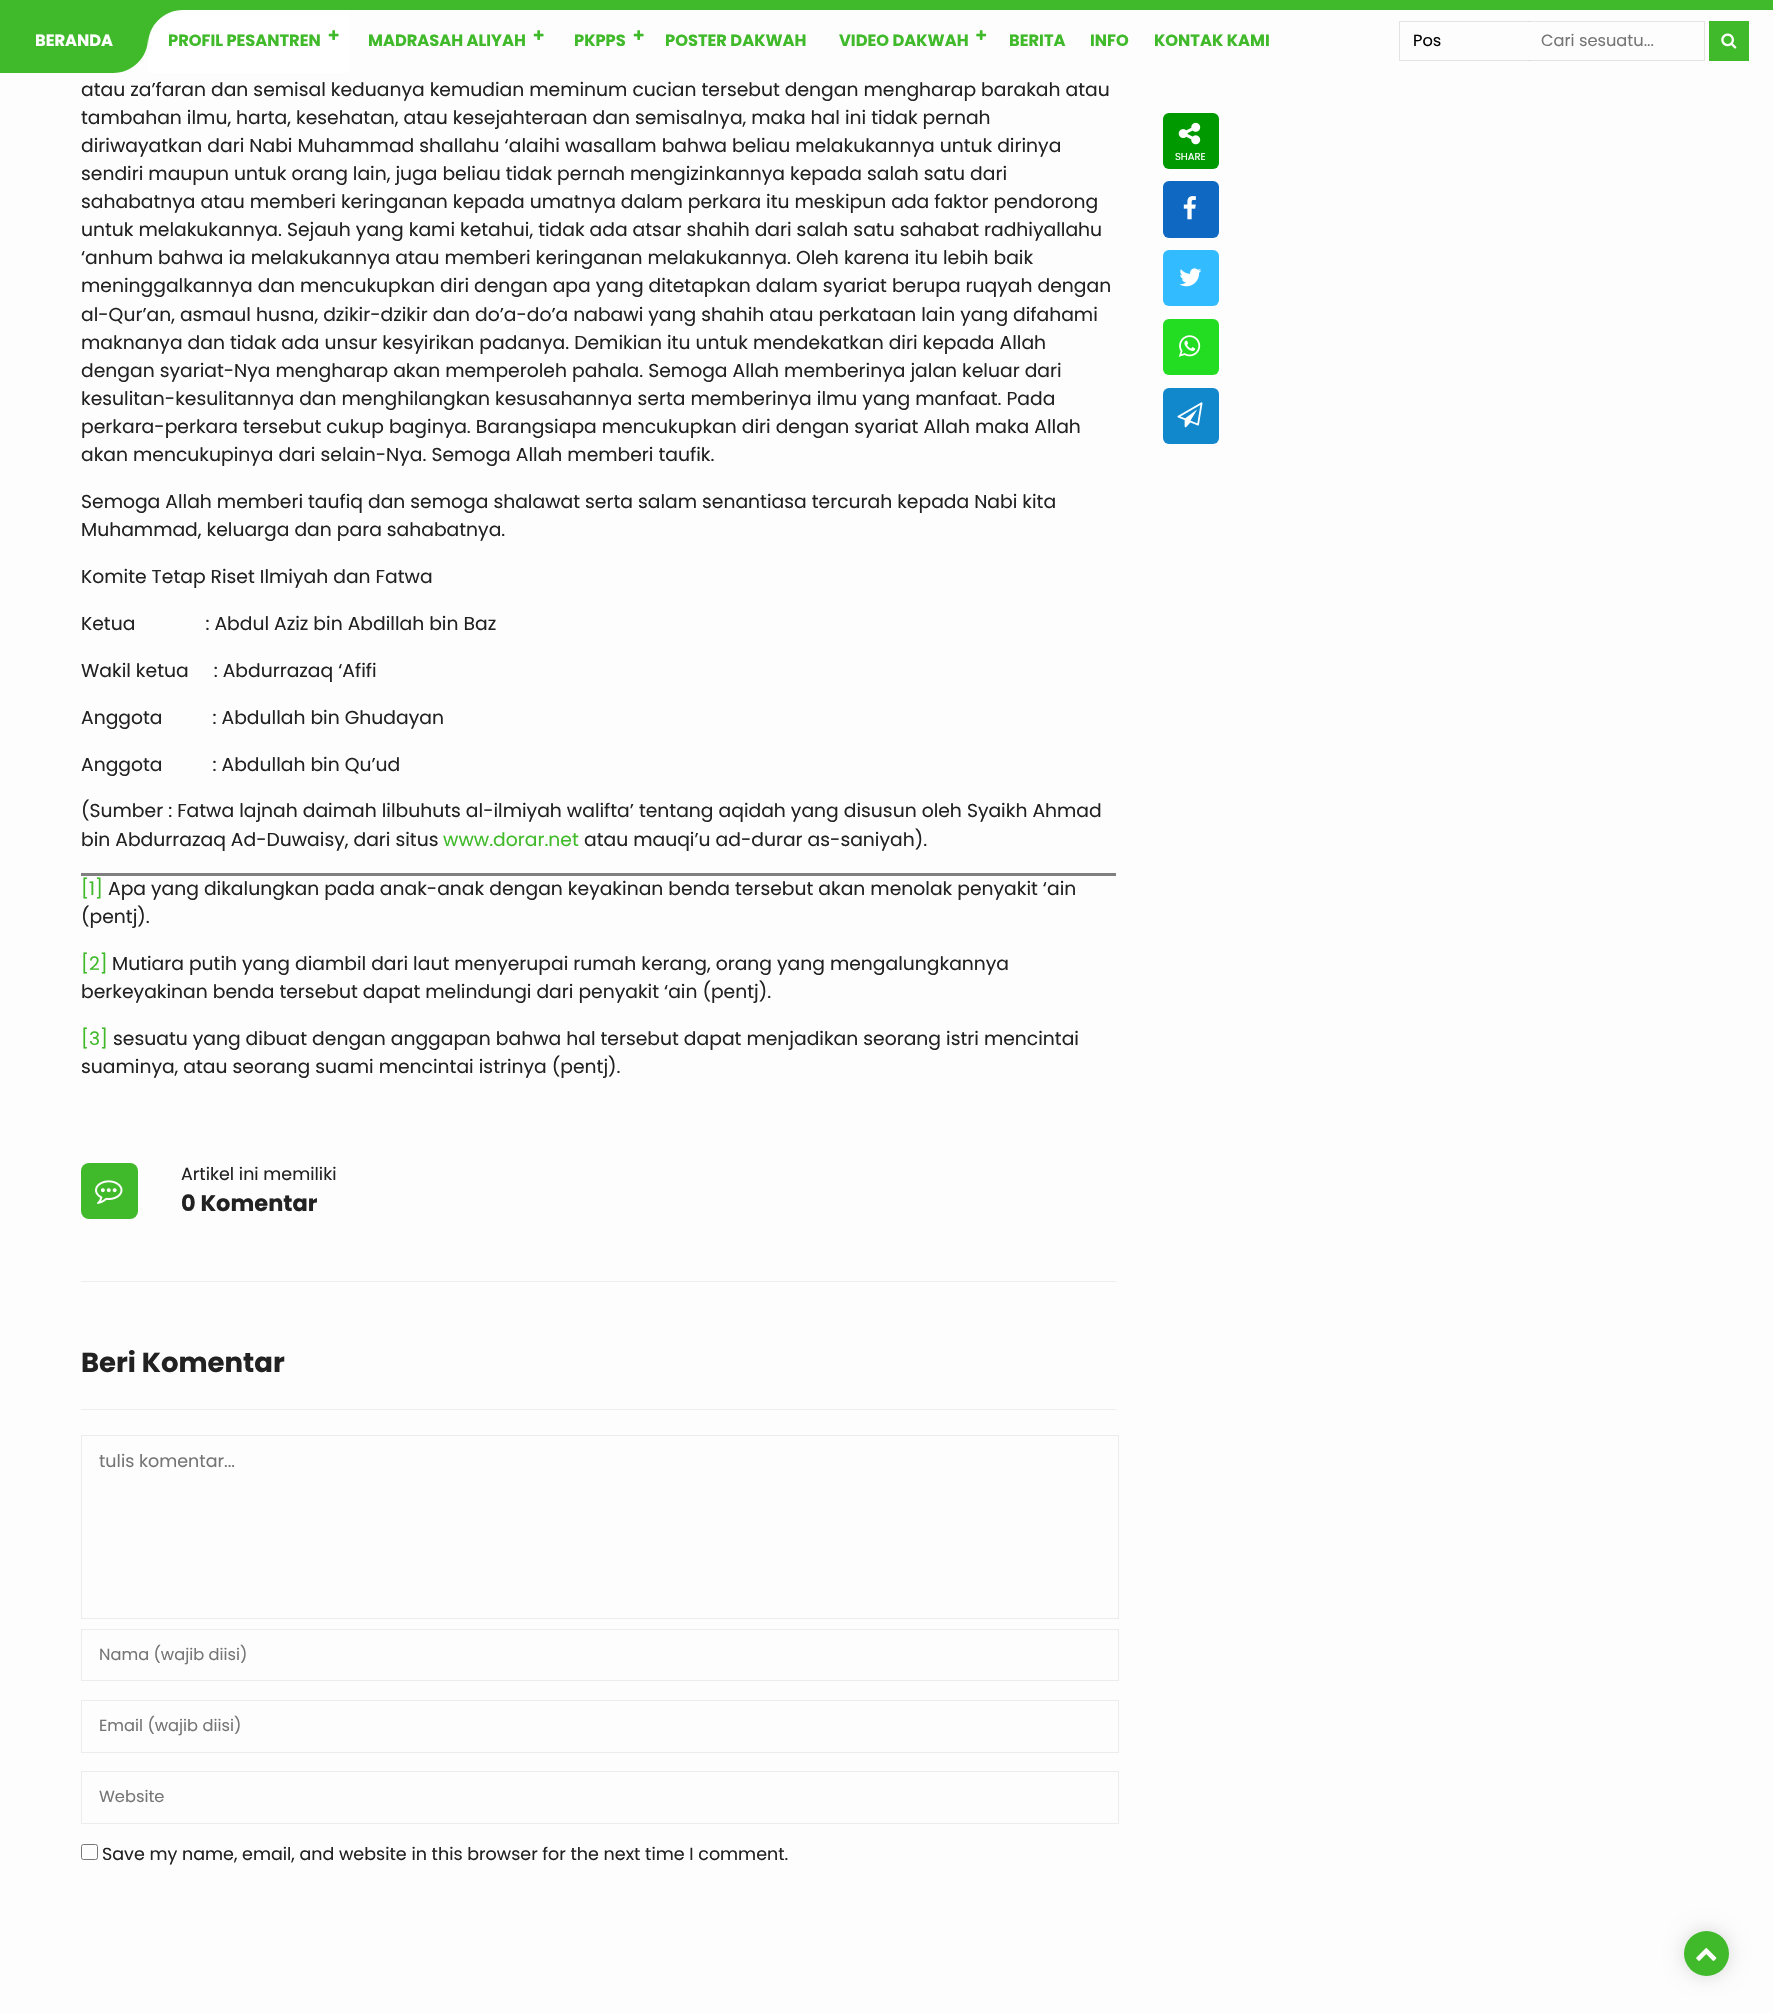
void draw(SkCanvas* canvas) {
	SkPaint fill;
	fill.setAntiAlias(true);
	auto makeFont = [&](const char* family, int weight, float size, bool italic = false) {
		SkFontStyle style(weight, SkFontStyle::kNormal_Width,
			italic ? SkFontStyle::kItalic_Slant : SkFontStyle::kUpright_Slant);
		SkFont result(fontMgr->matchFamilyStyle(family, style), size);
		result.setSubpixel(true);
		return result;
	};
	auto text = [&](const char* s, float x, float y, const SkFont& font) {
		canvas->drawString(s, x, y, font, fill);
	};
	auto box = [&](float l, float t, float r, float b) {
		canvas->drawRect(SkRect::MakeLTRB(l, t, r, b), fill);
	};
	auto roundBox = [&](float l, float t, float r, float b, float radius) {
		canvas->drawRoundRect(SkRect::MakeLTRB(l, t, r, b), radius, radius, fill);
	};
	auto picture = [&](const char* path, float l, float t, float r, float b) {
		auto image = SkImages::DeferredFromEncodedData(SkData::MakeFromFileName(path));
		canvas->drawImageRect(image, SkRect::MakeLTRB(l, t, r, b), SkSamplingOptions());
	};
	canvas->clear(0xFFFDFDFD);
	fill.setColor(0xFF40BA2A);
	box(0, 0, 1773, 10);
	canvas->drawPath(SkPathBuilder().moveTo(0, 10).lineTo(148, 10).lineTo(148, 38).cubicTo(148, 57.5f, 132.5f, 73, 113, 73).lineTo(0, 73).close().detach(), fill);
	box(148, 10, 183, 45);
	fill.setColor(0xFFFFFFFF);
	canvas->drawPath(SkPathBuilder().moveTo(183, 10).lineTo(349, 10).lineTo(349, 73).lineTo(148, 73).lineTo(148, 45).cubicTo(148, 25.5f, 163.5f, 10, 183, 10).close().detach(), fill);
	picture("image0.png", 328, 30, 339, 40);
	picture("image0.png", 533, 30, 544, 40);
	picture("image0.png", 633, 30, 644, 40);
	picture("image1.png", 976, 30, 987, 40);
	fill.setColor(0xFFE6E6E6);
	canvas->drawPath(SkPathBuilder().moveTo(1529, 21).lineTo(1705, 21).lineTo(1704, 22).lineTo(1529, 22).close().detach(), fill);
	fill.setColor(0x1A000000);
	canvas->drawPath(SkPathBuilder().moveTo(1399, 21).lineTo(1530, 21).lineTo(1530, 22).lineTo(1400, 22).close().detach(), fill);
	canvas->drawPath(SkPathBuilder().moveTo(1705, 21).lineTo(1705, 61).lineTo(1704, 60).lineTo(1704, 22).close().detach(), fill);
	canvas->drawPath(SkPathBuilder().moveTo(1705, 61).lineTo(1529, 61).lineTo(1529, 60).lineTo(1704, 60).close().detach(), fill);
	canvas->drawPath(SkPathBuilder().moveTo(1530, 61).lineTo(1399, 61).lineTo(1400, 60).lineTo(1530, 60).close().detach(), fill);
	canvas->drawPath(SkPathBuilder().moveTo(1399, 61).lineTo(1399, 21).lineTo(1400, 22).lineTo(1400, 60).close().detach(), fill);
	fill.setColor(0xFF40BA2A);
	box(1709, 21, 1749, 61);
	picture("image2.png", 1721, 33, 1737, 49);
	fill.setColor(0xFF808080);
	box(81, 873, 1116, 876);
	fill.setColor(0xFF009900);
	roundBox(1163, 113, 1219, 169, 6);
	picture("image3.png", 1178, 122, 1201, 145);
	fill.setColor(0xFF0F68C1);
	roundBox(1163, 181, 1219, 238, 6);
	picture("image4.png", 1183, 196, 1196, 220);
	fill.setColor(0xFF33BBFF);
	roundBox(1163, 250, 1219, 306, 6);
	picture("image5.png", 1179, 268, 1202, 287);
	fill.setColor(0xFF22DD22);
	roundBox(1163, 319, 1219, 375, 6);
	picture("image6.png", 1178, 335, 1201, 357);
	fill.setColor(0xFF1188CC);
	roundBox(1163, 388, 1219, 444, 6);
	picture("image7.png", 1177, 402, 1203, 428);
	fill.setColor(0xFFEEEEEE);
	box(81, 1281, 1116, 1282);
	fill.setColor(0xFF40BA2A);
	roundBox(81, 1163, 138, 1219, 8);
	picture("image8.png", 95, 1180, 123, 1204);
	fill.setColor(0xFFEEEEEE);
	box(81, 1409, 1116, 1410);
	fill.setStyle(SkPaint::kStroke_Style);
	fill.setStrokeWidth(1);
	fill.setColor(0xFFECECEC);
	canvas->drawRect(SkRect::MakeLTRB(81.5f, 1435.5f, 1118.5f, 1618.5f), fill);
	canvas->drawRect(SkRect::MakeLTRB(81.5f, 1629.5f, 1118.5f, 1680.5f), fill);
	canvas->drawRect(SkRect::MakeLTRB(81.5f, 1700.5f, 1118.5f, 1752.5f), fill);
	canvas->drawRect(SkRect::MakeLTRB(81.5f, 1771.5f, 1118.5f, 1823.5f), fill);
	fill.setColor(0xFF767676);
	canvas->drawRoundRect(SkRect::MakeLTRB(81.5f, 1844.5f, 97.5f, 1859.5f), 2, 2, fill);
	fill.setStyle(SkPaint::kFill_Style);
	fill.setColor(0x26000000);
	fill.setMaskFilter(SkMaskFilter::MakeBlur(kNormal_SkBlurStyle, 9.5f));
	canvas->drawRoundRect(SkRect::MakeLTRB(1684, 1931, 1729, 1976), 22.5f, 22.5f, fill);
	fill.setMaskFilter(nullptr);
	fill.setColor(0xFF40BA2A);
	canvas->drawCircle(1706.5f, 1953.5f, 22.5f, fill);
	picture("image9.png", 1696, 1948, 1717, 1961);
	auto font1 = makeFont("Poppins", 700, 16.25f);
	fill.setColor(0xFFFFFFFF);
	text("BERANDA", 35, 46, font1);
	fill.setColor(0xFF40BA2A);
	text("PROFIL PESANTREN", 168, 46, font1);
	text("MADRASAH ALIYAH", 368, 46, font1);
	text("PKPPS", 574, 46, font1);
	text("POSTER DAKWAH", 665, 46, font1);
	text("VIDEO DAKWAH", 839, 46, font1);
	text("BERITA", 1009, 46, font1);
	text("INFO", 1090, 46, font1);
	text("KONTAK KAMI", 1154, 46, font1);
	auto font2 = makeFont("Poppins", 400, 16.25f);
	fill.setColor(0xFF000000);
	text("Pos", 1413, 46, font2);
	fill.setColor(0xFF757575);
	text("Cari sesuatu...", 1541, 46, font2);
	auto font3 = makeFont("Poppins", 400, 18.75f);
	fill.setColor(0xFF222222);
	text("atau za’faran dan semisal keduanya kemudian meminum cucian tersebut dengan mengharap barakah atau", 81, 96, font3);
	text("tambahan ilmu, harta, kesehatan, atau kesejahteraan dan semisalnya, maka hal ini tidak pernah", 81, 124, font3);
	text("diriwayatkan dari Nabi Muhammad shallahu ‘alaihi wasallam bahwa beliau melakukannya untuk dirinya", 81, 152, font3);
	text("sendiri maupun untuk orang lain, juga beliau tidak pernah mengizinkannya kepada salah satu dari", 81, 180, font3);
	text("sahabatnya atau memberi keringanan kepada umatnya dalam perkara itu meskipun ada faktor pendorong", 81, 208, font3);
	text("untuk melakukannya. Sejauh yang kami ketahui, tidak ada atsar shahih dari salah satu sahabat radhiyallahu", 81, 236, font3);
	text("‘anhum bahwa ia melakukannya atau memberi keringanan melakukannya. Oleh karena itu lebih baik", 81, 264, font3);
	text("meninggalkannya dan mencukupkan diri dengan apa yang ditetapkan dalam syariat berupa ruqyah dengan", 81, 292, font3);
	text("al-Qur’an, asmaul husna, dzikir-dzikir dan do’a-do’a nabawi yang shahih atau perkataan lain yang difahami", 81, 321, font3);
	text("maknanya dan tidak ada unsur kesyirikan padanya. Demikian itu untuk mendekatkan diri kepada Allah", 81, 349, font3);
	text("dengan syariat-Nya mengharap akan memperoleh pahala. Semoga Allah memberinya jalan keluar dari", 81, 377, font3);
	text("kesulitan-kesulitannya dan menghilangkan kesusahannya serta memberinya ilmu yang manfaat. Pada", 81, 405, font3);
	text("perkara-perkara tersebut cukup baginya. Barangsiapa mencukupkan diri dengan syariat Allah maka Allah", 81, 433, font3);
	text("akan mencukupinya dari selain-Nya. Semoga Allah memberi taufik.", 81, 461, font3);
	text("Semoga Allah memberi taufiq dan semoga shalawat serta salam senantiasa tercurah kepada Nabi kita", 81, 508, font3);
	text("Muhammad, keluarga dan para sahabatnya.", 81, 536, font3);
	text("Komite Tetap Riset Ilmiyah dan Fatwa", 81, 583, font3);
	text("Ketua              : Abdul Aziz bin Abdillah bin Baz", 81, 630, font3);
	text("Wakil ketua     : Abdurrazaq ‘Afifi", 81, 677, font3);
	text("Anggota          : Abdullah bin Ghudayan", 81, 724, font3);
	text("Anggota          : Abdullah bin Qu’ud", 81, 771, font3);
	text("(Sumber : Fatwa lajnah daimah lilbuhuts al-ilmiyah walifta’ tentang aqidah yang disusun oleh Syaikh Ahmad", 81, 817, font3);
	text("bin Abdurrazaq Ad-Duwaisy, dari situs", 81, 846, font3);
	fill.setColor(0xFF40BA2A);
	text("www.dorar.net", 443, 846, font3);
	fill.setColor(0xFF222222);
	text("atau mauqi’u ad-durar as-saniyah).", 584, 846, font3);
	fill.setColor(0xFF40BA2A);
	text("[1]", 81, 895, font3);
	fill.setColor(0xFF222222);
	text("Apa yang dikalungkan pada anak-anak dengan keyakinan benda tersebut akan menolak penyakit ‘ain", 108, 895, font3);
	text("(pentj).", 81, 923, font3);
	fill.setColor(0xFF40BA2A);
	text("[2]", 81, 970, font3);
	fill.setColor(0xFF222222);
	text("Mutiara putih yang diambil dari laut menyerupai rumah kerang, orang yang mengalungkannya", 112, 970, font3);
	text("berkeyakinan benda tersebut dapat melindungi dari penyakit ‘ain (pentj).", 81, 998, font3);
	fill.setColor(0xFF40BA2A);
	text("[3]", 81, 1045, font3);
	fill.setColor(0xFF222222);
	text("sesuatu yang dibuat dengan anggapan bahwa hal tersebut dapat menjadikan seorang istri mencintai", 113, 1045, font3);
	text("suaminya, atau seorang suami mencintai istrinya (pentj).", 81, 1073, font3);
	auto font4 = makeFont("Poppins", 400, 10);
	fill.setColor(0xFFFFFFFF);
	text("SHARE", 1175, 160, font4);
	auto font5 = makeFont("Poppins", 400, 17.5f);
	fill.setColor(0xFF222222);
	text("Artikel ini memiliki", 181, 1180, font5);
	auto font6 = makeFont("Poppins", 700, 22.5f);
	text("0 Komentar", 181, 1211, font6);
	auto font7 = makeFont("Poppins", 700, 27.5f);
	text("Beri Komentar", 81, 1372, font7);
	fill.setColor(0xFF757575);
	text("tulis komentar...", 99, 1467, font5);
	text("Nama (wajib diisi)", 99, 1660, font2);
	text("Email (wajib diisi)", 99, 1731, font2);
	text("Website", 99, 1802, font2);
	fill.setColor(0xFF222222);
	text("Save my name, email, and website in this browser for the next time I comment.", 102, 1860, font5);
}
